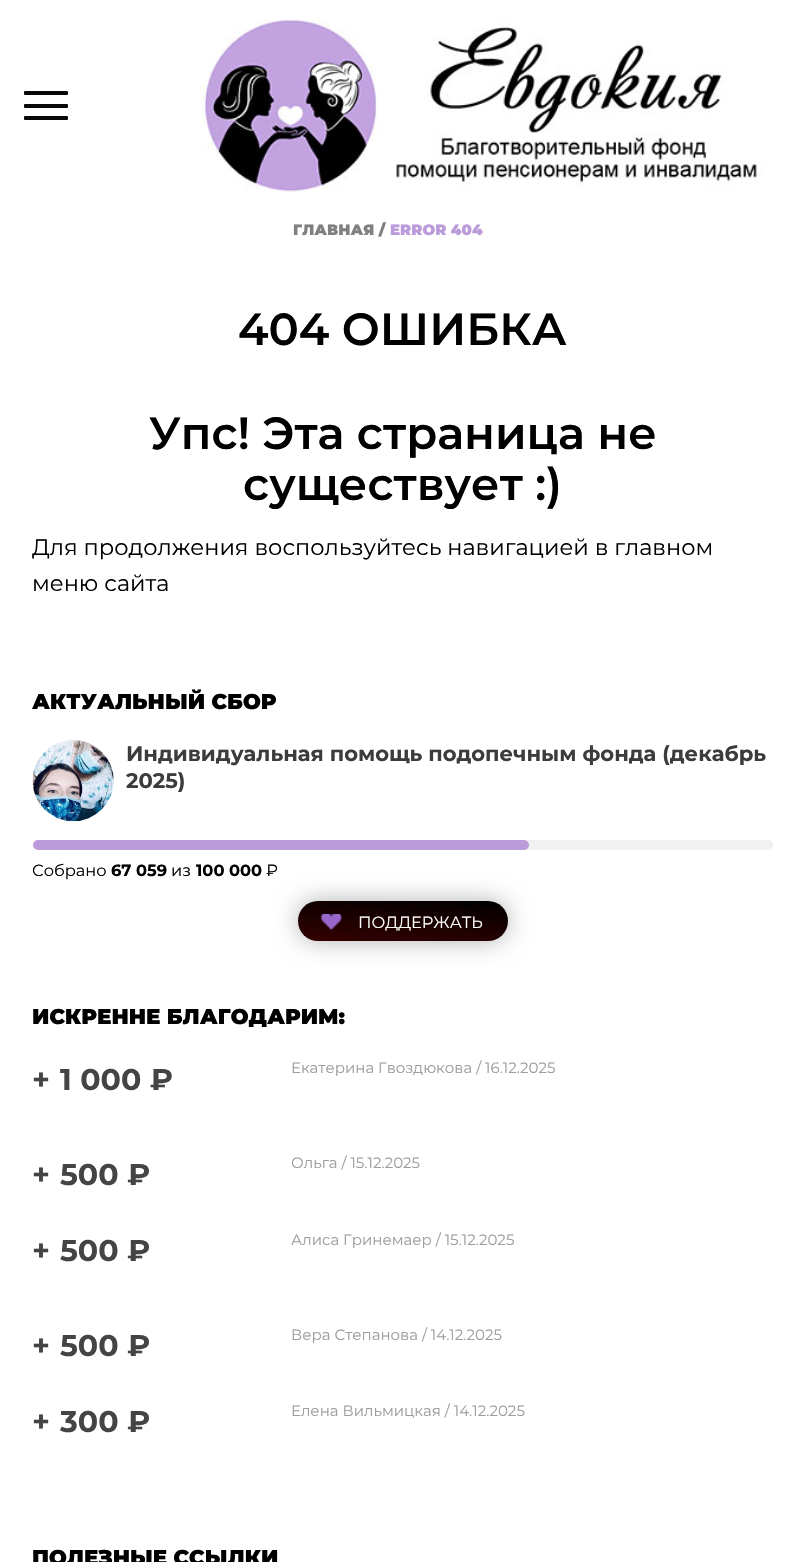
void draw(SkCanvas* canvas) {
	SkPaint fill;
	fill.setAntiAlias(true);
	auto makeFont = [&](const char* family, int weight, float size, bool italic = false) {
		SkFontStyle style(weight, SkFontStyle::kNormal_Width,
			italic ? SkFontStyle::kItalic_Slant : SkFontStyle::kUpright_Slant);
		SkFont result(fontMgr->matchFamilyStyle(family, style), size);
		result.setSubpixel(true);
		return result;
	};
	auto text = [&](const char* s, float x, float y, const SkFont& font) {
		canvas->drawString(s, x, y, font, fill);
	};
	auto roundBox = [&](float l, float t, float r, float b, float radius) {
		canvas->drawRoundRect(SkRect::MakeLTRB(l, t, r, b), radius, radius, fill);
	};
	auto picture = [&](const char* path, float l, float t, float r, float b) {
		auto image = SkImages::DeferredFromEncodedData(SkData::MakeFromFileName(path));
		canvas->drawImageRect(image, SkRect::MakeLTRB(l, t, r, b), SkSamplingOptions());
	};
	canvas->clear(0xFFFFFFFF);
	fill.setColor(0xFF080808);
	roundBox(24, 91, 68, 95, 1);
	roundBox(24, 104, 68, 108, 1);
	roundBox(24, 116, 68, 120, 1);
	picture("image0.png", 198, 19, 765, 192);
	picture("image1.png", 32, 740, 114, 822);
	fill.setColor(0xFFF1F1F1);
	roundBox(33, 840, 773, 850, 5);
	fill.setColor(0x9E9966CC);
	roundBox(33, 840, 529, 850, 5);
	fill.setColor(0x4D000000);
	fill.setMaskFilter(SkMaskFilter::MakeBlur(kNormal_SkBlurStyle, 12.5f));
	canvas->drawRoundRect(SkRect::MakeLTRB(298, 901, 508, 941), 20, 20, fill);
	fill.setMaskFilter(nullptr);
	{
		const SkColor colors[] = {0xFF000000, 0xFF350101};
		const float stops[] = {0, 1};
		const SkPoint ends[] = {{405, 892}, {400, 950}};
		fill.setShader(SkGradientShader::MakeLinear(ends, colors, stops, 2, SkTileMode::kClamp));
		fill.setAlpha(255);
	}
	roundBox(298, 901, 508, 941, 20);
	picture("image2.png", 321, 914, 342, 931);
	auto font1 = makeFont("Montserrat", 900, 15);
	fill.setShader(nullptr);
	fill.setColor(0xFF808080);
	text("ГЛАВНАЯ /", 293, 235, font1);
	fill.setColor(0xFFBB9BDA);
	text("ERROR 404", 390, 235, font1);
	auto font2 = makeFont("Montserrat", 600, 45);
	fill.setColor(0xFF000000);
	text("404 ОШИБКА", 238, 345, font2);
	text("Упс! Эта страница не", 149, 449, font2);
	text("существует :)", 243, 500, font2);
	auto font3 = makeFont("Montserrat", 400, 22.5f);
	text("Для продолжения воспользуйтесь навигацией в главном", 32, 555, font3);
	text("меню сайта", 32, 591, font3);
	auto font4 = makeFont("Montserrat", 900, 21.25f);
	text("АКТУАЛЬНЫЙ СБОР", 32, 709, font4);
	auto font5 = makeFont("Montserrat", 700, 21.1f);
	fill.setColor(0xFF3C3C3C);
	text("Индивидуальная помощь подопечным фонда (декабрь", 126, 761, font5);
	text("2025)", 126, 788, font5);
	auto font6 = makeFont("Montserrat", 400, 16.25f);
	fill.setColor(0xFF000000);
	text("Собрано", 32, 876, font6);
	auto font7 = makeFont("Montserrat", 700, 16.25f);
	text("67 059", 111, 876, font7);
	text("из", 171, 876, font6);
	text("100 000", 196, 876, font7);
	text("₽", 266, 876, font6);
	fill.setColor(0xFFFFFFFF);
	text("ПОДДЕРЖАТЬ", 358, 928, font6);
	fill.setColor(0xFF000000);
	text("ИСКРЕННЕ БЛАГОДАРИМ:", 32, 1024, font4);
	auto font8 = makeFont("Montserrat", 700, 30);
	fill.setColor(0xFF444444);
	text("+", 32, 1090, font8);
	text("1 000 ₽", 60, 1090, font8);
	auto font9 = makeFont("Montserrat", 400, 15);
	fill.setColor(0xFF9D9D9D);
	text("Екатерина Гвоздюкова / 16.12.2025", 291, 1073, font9);
	fill.setColor(0xFF444444);
	text("+", 32, 1185, font8);
	text("500 ₽", 60, 1185, font8);
	fill.setColor(0xFF9D9D9D);
	text("Ольга / 15.12.2025", 291, 1168, font9);
	fill.setColor(0xFF444444);
	text("+", 32, 1261, font8);
	text("500 ₽", 60, 1261, font8);
	fill.setColor(0xFF9D9D9D);
	text("Алиса Гринемаер / 15.12.2025", 291, 1245, font9);
	fill.setColor(0xFF444444);
	text("+", 32, 1356, font8);
	text("500 ₽", 60, 1356, font8);
	fill.setColor(0xFF9D9D9D);
	text("Вера Степанова / 14.12.2025", 291, 1340, font9);
	fill.setColor(0xFF444444);
	text("+", 32, 1432, font8);
	text("300 ₽", 60, 1432, font8);
	fill.setColor(0xFF9D9D9D);
	text("Елена Вильмицкая / 14.12.2025", 291, 1416, font9);
	fill.setColor(0xFF000000);
	text("ПОЛЕЗНЫЕ ССЫЛКИ", 32, 1565, font4);
}
